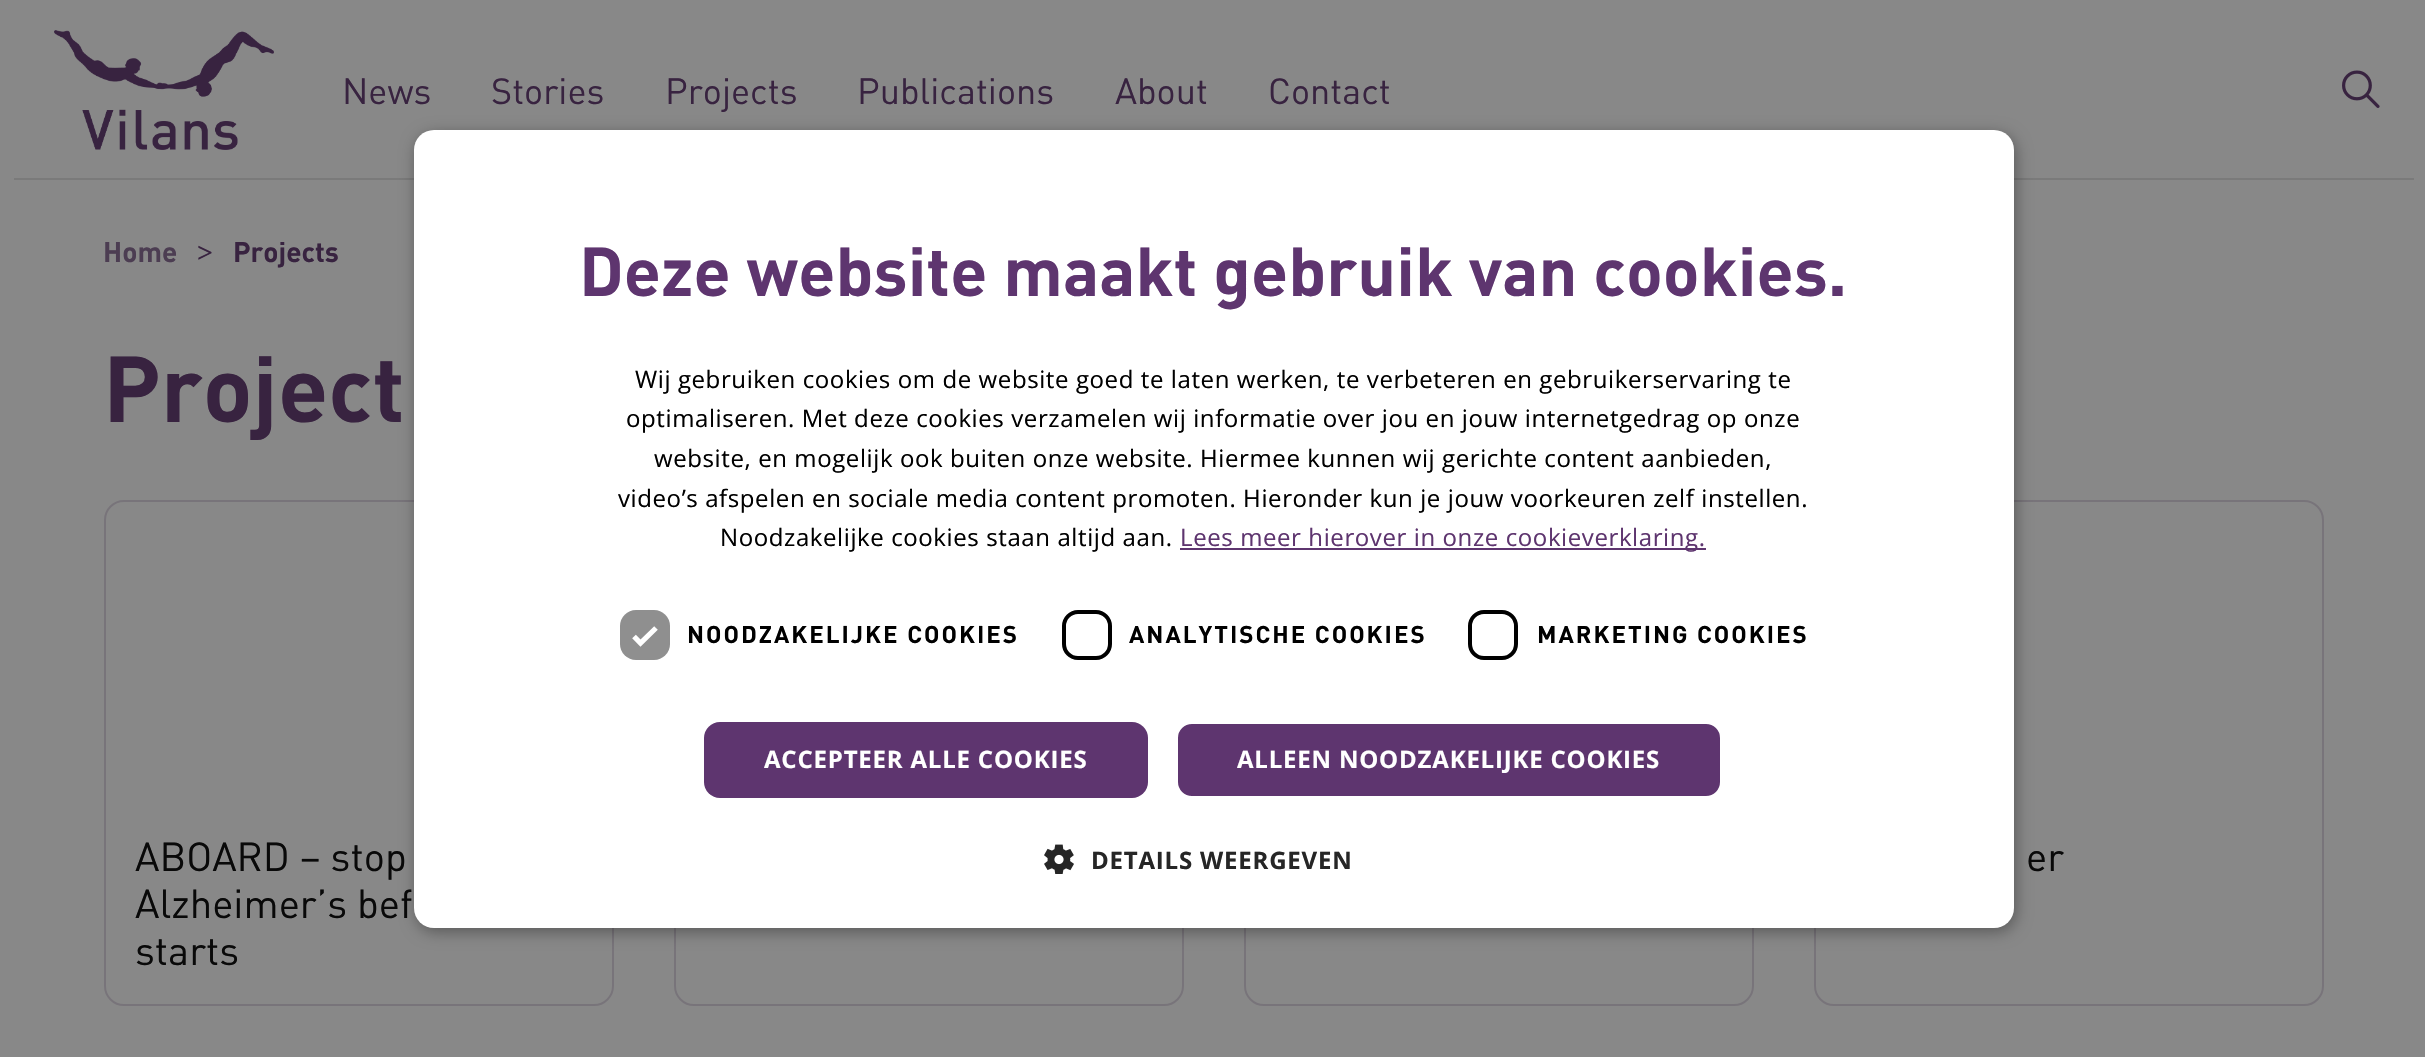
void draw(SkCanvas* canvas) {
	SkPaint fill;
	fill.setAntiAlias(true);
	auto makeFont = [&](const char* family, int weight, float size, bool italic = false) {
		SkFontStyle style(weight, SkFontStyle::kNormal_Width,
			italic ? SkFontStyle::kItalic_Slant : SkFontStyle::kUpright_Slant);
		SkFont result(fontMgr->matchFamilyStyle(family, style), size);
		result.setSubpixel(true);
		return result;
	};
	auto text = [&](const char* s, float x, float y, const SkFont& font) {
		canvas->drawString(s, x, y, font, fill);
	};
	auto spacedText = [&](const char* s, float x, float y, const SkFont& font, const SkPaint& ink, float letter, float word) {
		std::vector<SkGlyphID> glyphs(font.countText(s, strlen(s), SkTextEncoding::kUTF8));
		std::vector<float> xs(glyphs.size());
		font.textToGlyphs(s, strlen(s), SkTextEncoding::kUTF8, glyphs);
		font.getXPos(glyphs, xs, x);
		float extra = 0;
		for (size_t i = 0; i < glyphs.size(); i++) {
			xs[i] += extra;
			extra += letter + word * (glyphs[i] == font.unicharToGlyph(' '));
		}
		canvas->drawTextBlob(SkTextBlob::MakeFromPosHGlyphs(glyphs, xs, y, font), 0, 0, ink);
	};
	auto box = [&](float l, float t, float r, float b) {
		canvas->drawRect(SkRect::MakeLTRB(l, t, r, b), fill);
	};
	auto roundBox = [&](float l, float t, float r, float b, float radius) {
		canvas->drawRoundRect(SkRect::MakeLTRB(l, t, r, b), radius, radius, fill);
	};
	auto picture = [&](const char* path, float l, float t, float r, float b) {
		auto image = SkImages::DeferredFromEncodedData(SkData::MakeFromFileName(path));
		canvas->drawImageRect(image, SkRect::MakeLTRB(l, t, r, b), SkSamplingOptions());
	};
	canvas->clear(0xFF888888);
	fill.setColor(0xFF7A7A7A);
	box(14, 178, 2414, 180);
	picture("image0.png", 54, 30, 274, 150);
	picture("image1.png", 2342, 70, 2380, 108);
	fill.setStyle(SkPaint::kStroke_Style);
	fill.setStrokeWidth(2);
	fill.setColor(0xFF78747A);
	canvas->drawRoundRect(SkRect::MakeLTRB(105, 501, 613, 1005), 19, 19, fill);
	canvas->drawRoundRect(SkRect::MakeLTRB(675, 501, 1183, 1005), 19, 19, fill);
	canvas->drawRoundRect(SkRect::MakeLTRB(1245, 501, 1753, 1005), 19, 19, fill);
	canvas->drawRoundRect(SkRect::MakeLTRB(1815, 501, 2323, 1005), 19, 19, fill);
	fill.setStyle(SkPaint::kFill_Style);
	fill.setColor(0x59000000);
	fill.setMaskFilter(SkMaskFilter::MakeBlur(kNormal_SkBlurStyle, 8));
	canvas->drawRoundRect(SkRect::MakeLTRB(416, 134, 2016, 932), 20, 20, fill);
	fill.setMaskFilter(nullptr);
	fill.setColor(0xFFFFFFFF);
	roundBox(414, 130, 2014, 928, 20);
	fill.setColor(0xFF5E356F);
	box(1180, 548, 1706, 550);
	fill.setColor(0xFF8F8F8F);
	roundBox(620, 610, 670, 660, 16);
	fill.setStyle(SkPaint::kStroke_Style);
	fill.setStrokeWidth(5.2f);
	fill.setColor(0xFFFFFFFF);
	canvas->drawPath(SkPathBuilder().moveTo(634, 636.5f).lineTo(640.5f, 643).lineTo(656, 628).detach(), fill);
	fill.setStrokeWidth(4);
	fill.setColor(0xFF000000);
	canvas->drawRoundRect(SkRect::MakeLTRB(1064, 612, 1110, 658), 14, 14, fill);
	canvas->drawRoundRect(SkRect::MakeLTRB(1470, 612, 1516, 658), 14, 14, fill);
	fill.setStyle(SkPaint::kFill_Style);
	fill.setColor(0xFF5E356F);
	roundBox(704, 722, 1148, 798, 16);
	canvas->drawRoundRect(SkRect::MakeLTRB(1177, 723, 1721, 797), 15, 15, fill);
	fill.setStyle(SkPaint::kStroke_Style);
	fill.setStrokeWidth(2);
	fill.setColor(0xFFFFFFFF);
	canvas->drawRoundRect(SkRect::MakeLTRB(1177, 723, 1721, 797), 15, 15, fill);
	picture("image2.png", 1044, 844, 1074, 874);
	auto font1 = makeFont("DIN", 400, 36);
	fill.setStyle(SkPaint::kFill_Style);
	fill.setColor(0xFF382340);
	text("News", 342, 104, font1);
	text("Stories", 491, 104, font1);
	text("Projects", 665, 104, font1);
	text("Publications", 857, 104, font1);
	text("About", 1115, 104, font1);
	text("Contact", 1268, 104, font1);
	auto font2 = makeFont("DIN", 700, 28);
	fill.setColor(0xFF4C3D52);
	text("Home", 103, 262, font2);
	auto font3 = makeFont("Liberation Serif", 700, 28);
	fill.setColor(0xFF382340);
	text(">", 197, 262, font3);
	text("Projects", 233, 262, font2);
	auto font4 = makeFont("DIN", 700, 92);
	text("Project", 103, 422, font4);
	auto font5 = makeFont("DIN", 400, 40);
	fill.setColor(0xFF090909);
	text("ABOARD – stop", 135, 871, font5);
	text("Alzheimer’s bef", 135, 918, font5);
	text("starts", 135, 965, font5);
	text("er", 2026, 871, font5);
	auto font6 = makeFont("DIN", 700, 68);
	fill.setColor(0xFF5E356F);
	text("Deze website maakt gebruik van cookies.", 579, 296, font6);
	auto font7 = makeFont("Open Sans", 400, 24);
	fill.setColor(0xFF000000);
	spacedText("Wij gebruiken cookies om de website goed te laten werken, te verbeteren en gebruikerservaring te", 635, 388, font7, fill, 0.6f, 0);
	spacedText("optimaliseren. Met deze cookies verzamelen wij informatie over jou en jouw internetgedrag op onze", 626, 427, font7, fill, 0.6f, 0);
	spacedText("website, en mogelijk ook buiten onze website. Hiermee kunnen wij gerichte content aanbieden,", 654, 467, font7, fill, 0.6f, 0);
	spacedText("video’s afspelen en sociale media content promoten. Hieronder kun je jouw voorkeuren zelf instellen.", 618, 507, font7, fill, 0.6f, 0);
	spacedText("Noodzakelijke cookies staan altijd aan.", 720, 546, font7, fill, 0.6f, 0);
	fill.setColor(0xFF5E356F);
	spacedText("Lees meer hierover in onze cookieverklaring.", 1180, 546, font7, fill, 0.6f, 0);
	auto font8 = makeFont("DIN", 700, 24);
	fill.setColor(0xFF000000);
	spacedText("NOODZAKELIJKE COOKIES", 687, 643, font8, fill, 2, 0);
	spacedText("ANALYTISCHE COOKIES", 1129, 643, font8, fill, 2, 0);
	spacedText("MARKETING COOKIES", 1537, 643, font8, fill, 2, 0);
	auto font9 = makeFont("Open Sans", 700, 24);
	fill.setColor(0xFFFFFFFF);
	spacedText("ACCEPTEER ALLE COOKIES", 764, 768, font9, fill, 0.8f, 0);
	spacedText("ALLEEN NOODZAKELIJKE COOKIES", 1237, 768, font9, fill, 0.8f, 0);
	fill.setColor(0xFF262626);
	spacedText("DETAILS WEERGEVEN", 1091, 869, font9, fill, 0.8f, 0);
}
